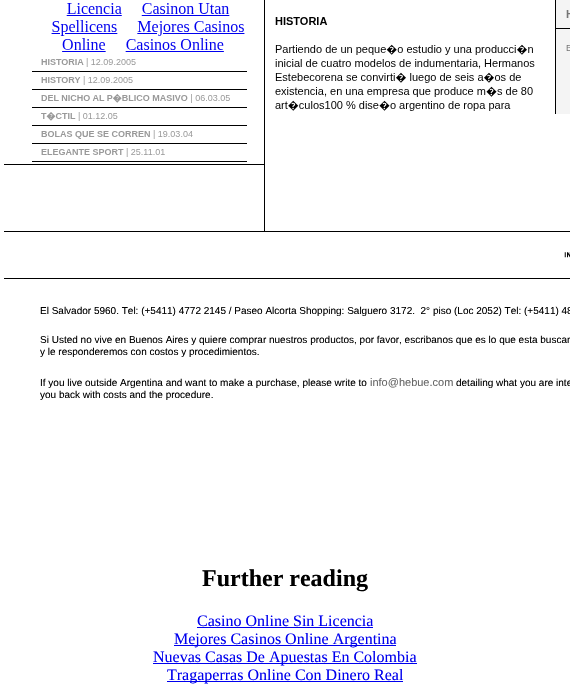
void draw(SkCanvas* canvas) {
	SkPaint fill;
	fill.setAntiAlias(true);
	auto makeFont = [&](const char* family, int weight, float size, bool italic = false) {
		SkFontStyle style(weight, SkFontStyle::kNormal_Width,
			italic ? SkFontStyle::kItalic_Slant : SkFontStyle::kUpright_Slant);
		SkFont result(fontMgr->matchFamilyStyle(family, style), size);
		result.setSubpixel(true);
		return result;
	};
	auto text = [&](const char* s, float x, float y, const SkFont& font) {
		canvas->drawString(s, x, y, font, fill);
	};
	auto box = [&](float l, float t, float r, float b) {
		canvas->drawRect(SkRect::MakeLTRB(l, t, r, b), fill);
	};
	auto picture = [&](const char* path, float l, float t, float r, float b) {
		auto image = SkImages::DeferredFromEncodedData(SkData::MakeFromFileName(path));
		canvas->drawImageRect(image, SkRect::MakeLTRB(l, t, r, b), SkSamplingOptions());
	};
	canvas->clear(0xFFFFFFFF);
	picture("image0.png", 32, 3, 247, 162);
	fill.setColor(0xFF000000);
	box(4, 164, 264, 165);
	box(264, 0, 265, 231);
	picture("image1.png", 275, 0, 570, 114);
	box(4, 231, 570, 232);
	picture("image2.png", 564, 252, 570, 258);
	box(4, 278, 570, 279);
	fill.setColor(0xFF0000EE);
	box(197, 627, 373, 628);
	box(174, 645, 396, 646);
	box(153, 663, 417, 664);
	box(167, 681, 403, 682);
	auto font1 = makeFont("Liberation Sans", 400, 10);
	fill.setColor(0xFF000000);
	text("El Salvador 5960. Tel: (+5411) 4772 2145 / Paseo Alcorta Shopping: Salguero 3172.  2° piso (Loc 2052) Tel: (+5411) 48", 40, 314, font1);
	text("Si Usted no vive en Buenos Aires y quiere comprar nuestros productos, por favor, escribanos que es lo que esta buscan", 40, 343, font1);
	text("y le responderemos con costos y procedimientos.", 40, 355, font1);
	text("If you live outside Argentina and want to make a purchase, please write to", 40, 386, font1);
	auto font2 = makeFont("Liberation Sans", 400, 11);
	fill.setColor(0xFF666666);
	text("info@hebue.com", 370, 386, font2);
	fill.setColor(0xFF000000);
	text("detailing what you are inte", 456, 386, font1);
	text("you back with costs and the procedure.", 40, 398, font1);
	auto font3 = makeFont("Liberation Serif", 700, 24);
	text("Further reading", 202, 586, font3);
	auto font4 = makeFont("Liberation Serif", 400, 16);
	fill.setColor(0xFF0000EE);
	text("Casino Online Sin Licencia", 197, 626, font4);
	text("Mejores Casinos Online Argentina", 174, 644, font4);
	text("Nuevas Casas De Apuestas En Colombia", 153, 662, font4);
	text("Tragaperras Online Con Dinero Real", 167, 680, font4);
}
